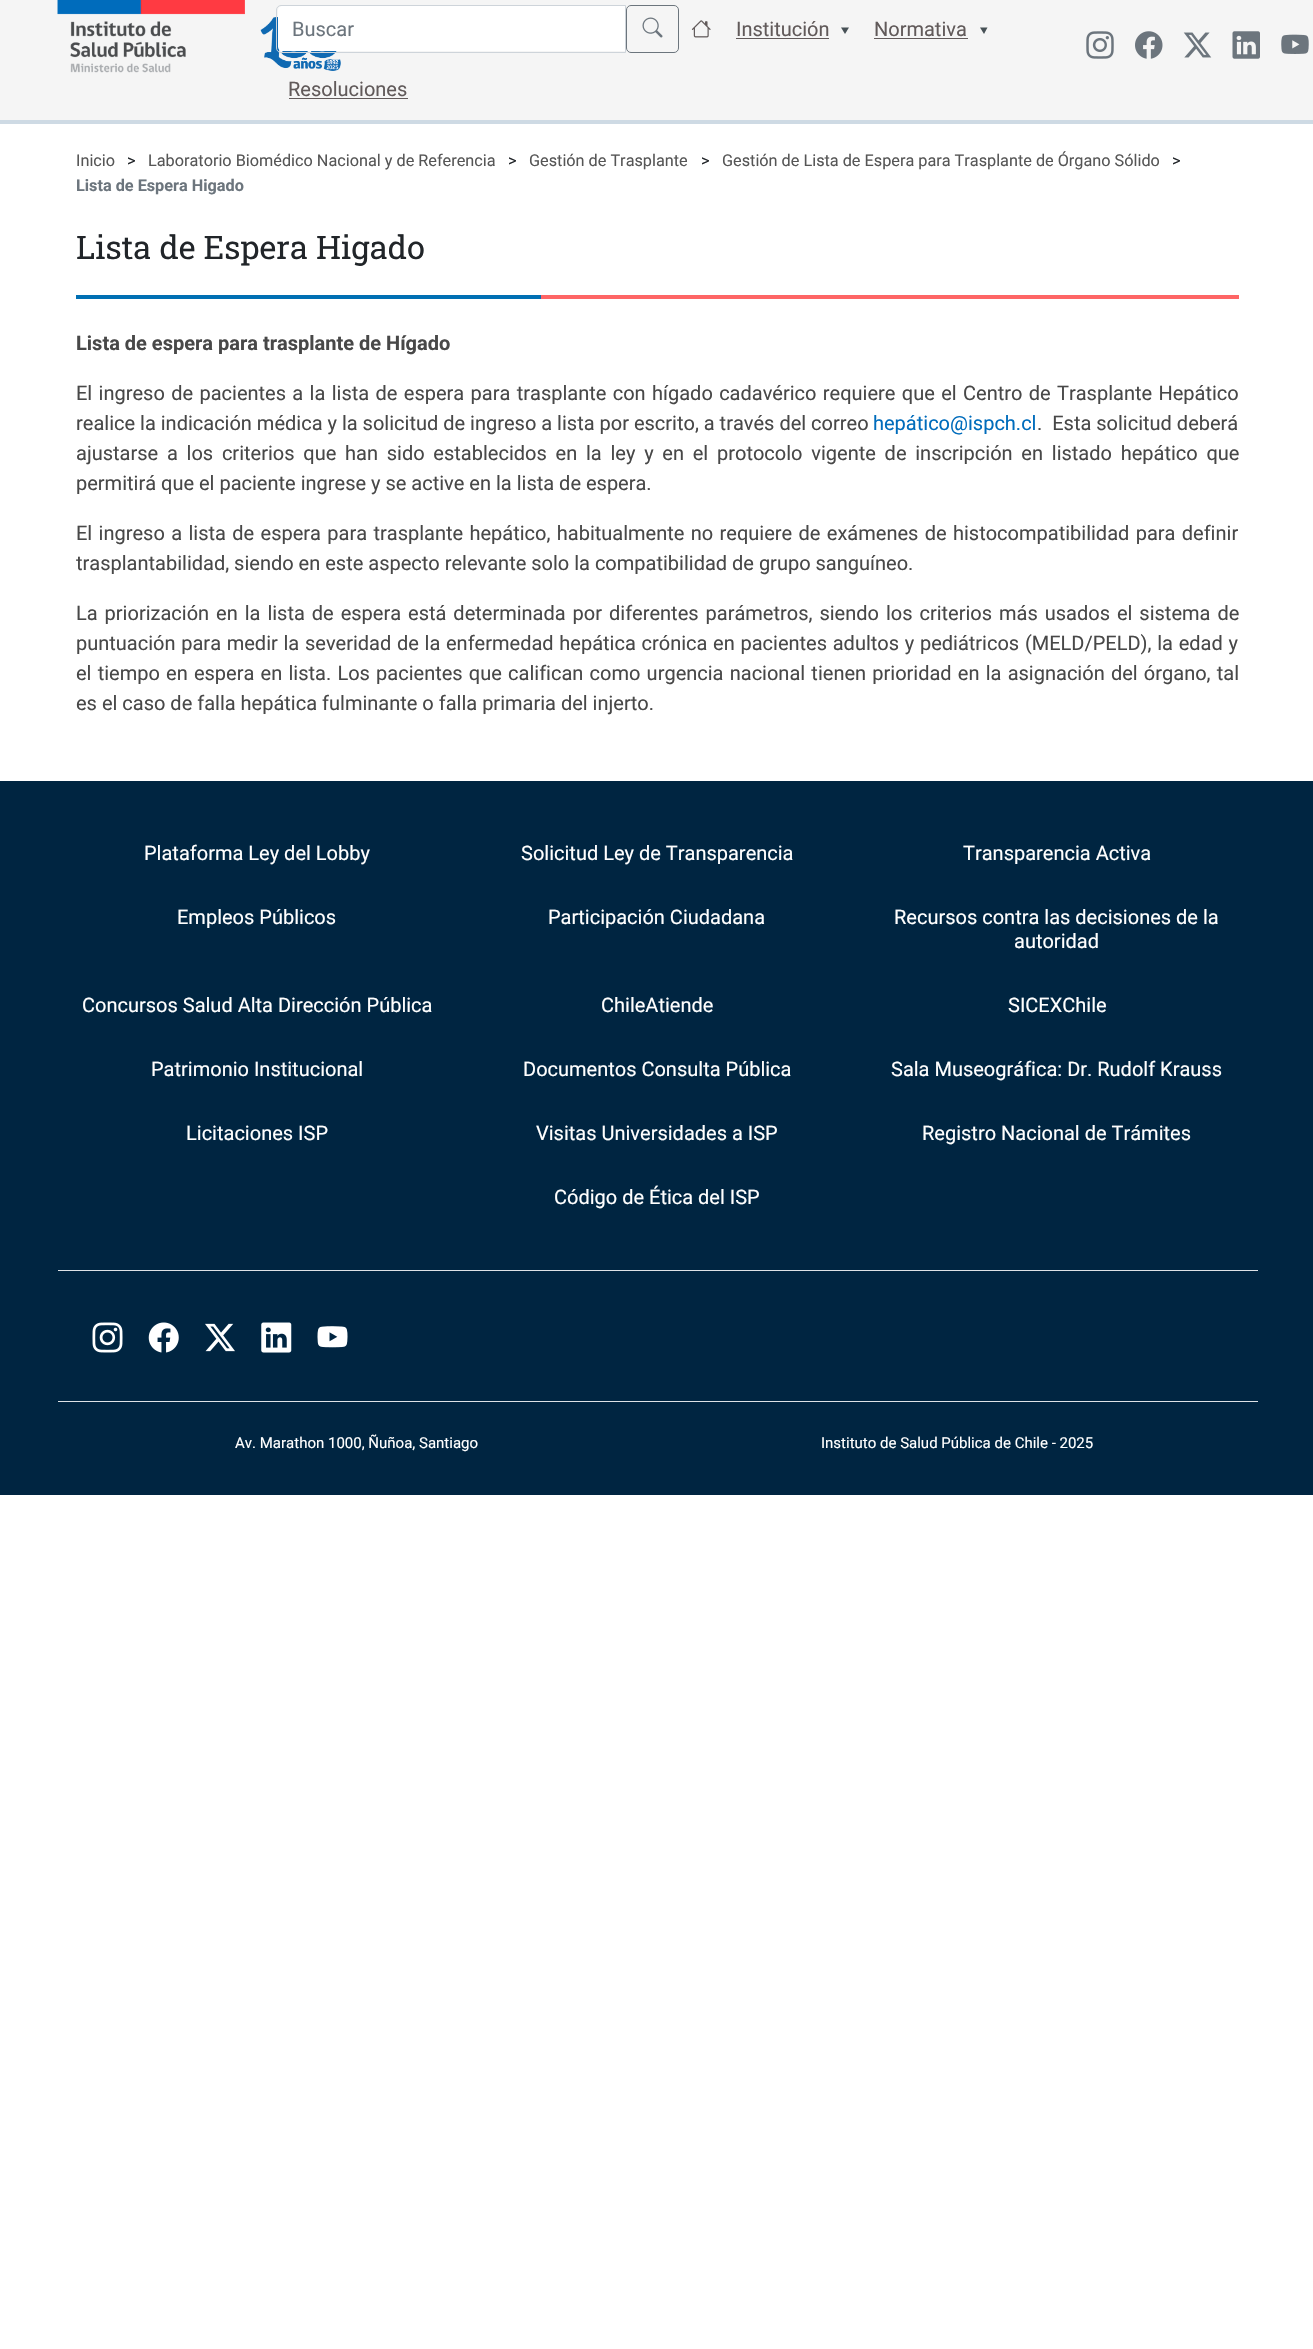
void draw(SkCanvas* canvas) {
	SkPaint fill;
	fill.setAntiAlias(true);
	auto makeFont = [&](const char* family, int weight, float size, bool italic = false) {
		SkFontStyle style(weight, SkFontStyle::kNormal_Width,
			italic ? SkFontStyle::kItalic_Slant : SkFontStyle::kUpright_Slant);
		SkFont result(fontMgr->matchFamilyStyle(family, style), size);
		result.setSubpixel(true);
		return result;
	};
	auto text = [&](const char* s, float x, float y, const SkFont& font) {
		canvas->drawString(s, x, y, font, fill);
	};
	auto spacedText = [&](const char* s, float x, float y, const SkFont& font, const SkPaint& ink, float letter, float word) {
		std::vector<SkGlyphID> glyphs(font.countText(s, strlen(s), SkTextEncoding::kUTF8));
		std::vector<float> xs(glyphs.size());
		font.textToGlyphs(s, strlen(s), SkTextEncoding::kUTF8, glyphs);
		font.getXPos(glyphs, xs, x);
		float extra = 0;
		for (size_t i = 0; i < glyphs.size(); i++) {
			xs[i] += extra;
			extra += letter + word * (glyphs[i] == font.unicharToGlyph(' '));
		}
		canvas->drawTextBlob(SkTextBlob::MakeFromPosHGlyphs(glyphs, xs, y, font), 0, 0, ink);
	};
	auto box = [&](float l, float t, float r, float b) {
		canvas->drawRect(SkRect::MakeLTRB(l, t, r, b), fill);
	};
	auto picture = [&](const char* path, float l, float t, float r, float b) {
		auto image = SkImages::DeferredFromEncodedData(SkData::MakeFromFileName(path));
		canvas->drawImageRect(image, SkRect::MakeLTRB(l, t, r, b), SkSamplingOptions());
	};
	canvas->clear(0xFFFFFFFF);
	fill.setColor(0xFFF5F5F5);
	box(0, 0, 1313, 120);
	fill.setColor(0xFFCEDAE4);
	box(0, 120, 1313, 124);
	picture("image0.png", 57, 0, 245, 73);
	picture("image1.png", 260, 17, 341, 71);
	fill.setColor(0xFFFFFFFF);
	canvas->drawPath(SkPathBuilder().moveTo(282, 6).lineTo(625, 6).lineTo(625, 51).lineTo(282, 51).cubicTo(280, 51, 278, 49, 278, 47).lineTo(278, 10).cubicTo(278, 8, 280, 6, 282, 6).close().detach(), fill);
	fill.setStyle(SkPaint::kStroke_Style);
	fill.setStrokeWidth(1);
	fill.setColor(0xFFCED4DA);
	canvas->drawPath(SkPathBuilder().moveTo(281, 5.5f).lineTo(625.5f, 5.5f).lineTo(625.5f, 52.5f).lineTo(281, 52.5f).cubicTo(278.5f, 52.5f, 276.5f, 50.5f, 276.5f, 48).lineTo(276.5f, 10).cubicTo(276.5f, 7.5f, 278.5f, 5.5f, 281, 5.5f).close().detach(), fill);
	fill.setColor(0xFF6C757D);
	canvas->drawRoundRect(SkRect::MakeLTRB(626.5f, 5.5f, 678.5f, 52.5f), 4.5f, 4.5f, fill);
	picture("image2.png", 642, 17, 663, 38);
	picture("image3.png", 691, 20, 711, 38);
	fill.setStyle(SkPaint::kFill_Style);
	fill.setColor(0xFF615A5A);
	box(736, 38, 829, 39);
	fill.setColor(0xFF475156);
	canvas->drawPath(SkPathBuilder().moveTo(841, 27.5f).lineTo(849, 27.5f).lineTo(845, 34).close().detach(), fill);
	fill.setColor(0xFF615A5A);
	box(874, 38, 968, 39);
	fill.setColor(0xFF475156);
	canvas->drawPath(SkPathBuilder().moveTo(980, 27.5f).lineTo(987.5f, 27.5f).lineTo(984, 34).close().detach(), fill);
	fill.setColor(0xFF615A5A);
	box(289, 98, 408, 99);
	picture("image4.png", 1086, 31, 1114, 59);
	picture("image5.png", 1135, 31, 1163, 59);
	picture("image6.png", 1183, 32, 1212, 58);
	picture("image7.png", 1232, 31, 1260, 59);
	picture("image8.png", 1281, 34, 1309, 54);
	fill.setColor(0xFF006FB3);
	box(76, 295, 541, 299);
	fill.setColor(0xFFFE6565);
	box(541, 295, 1239, 299);
	fill.setColor(0xFF002541);
	box(0, 781, 1313, 1495);
	fill.setColor(0xFFDEE2E6);
	box(58, 1270, 1258, 1271);
	picture("image9.png", 92, 1322, 123, 1353);
	picture("image10.png", 148, 1322, 179, 1353);
	picture("image11.png", 205, 1323, 235, 1352);
	picture("image12.png", 261, 1322, 292, 1353);
	picture("image13.png", 317, 1326, 348, 1348);
	box(58, 1401, 1258, 1402);
	auto font1 = makeFont("Roboto", 400, 20);
	fill.setColor(0xFF6C757D);
	text("Buscar", 292, 36, font1);
	fill.setColor(0xFF615A5A);
	text("Institución", 736, 36, font1);
	text("Normativa", 874, 36, font1);
	text("Resoluciones", 288, 96, font1);
	auto font2 = makeFont("Roboto", 400, 16.25f);
	fill.setColor(0xFF565656);
	text("Inicio", 76, 166, font2);
	fill.setColor(0xFF212529);
	text(">", 127, 166, font2);
	fill.setColor(0xFF565656);
	text("Laboratorio Biomédico Nacional y de Referencia", 148, 166, font2);
	fill.setColor(0xFF212529);
	text(">", 508, 166, font2);
	fill.setColor(0xFF565656);
	text("Gestión de Trasplante", 529, 166, font2);
	fill.setColor(0xFF212529);
	text(">", 701, 166, font2);
	fill.setColor(0xFF565656);
	text("Gestión de Lista de Espera para Trasplante de Órgano Sólido", 722, 166, font2);
	fill.setColor(0xFF212529);
	text(">", 1172, 166, font2);
	auto font3 = makeFont("Roboto", 700, 16.25f);
	fill.setColor(0xFF6C757D);
	text("Lista de Espera Higado", 76, 191, font3);
	auto font4 = makeFont("Roboto Slab", 400, 32.5f);
	fill.setColor(0xFF212529);
	text("Lista de Espera Higado", 76, 259, font4);
	auto font5 = makeFont("Roboto", 700, 20);
	fill.setColor(0xFF484848);
	text("Lista de espera para trasplante de Hígado", 76, 350, font5);
	spacedText("El ingreso de pacientes a la lista de espera para trasplante con hígado cadavérico requiere que el Centro de Trasplante Hepático", 76, 400, font1, fill, 0, 1.4f);
	text("realice la indicación médica y la solicitud de ingreso a lista por escrito, a través del correo", 76, 430, font1);
	fill.setColor(0xFF006CBC);
	text("hepático@ispch.cl", 873, 430, font1);
	fill.setColor(0xFF484848);
	text(".  Esta solicitud deberá", 1037, 430, font1);
	spacedText("ajustarse a los criterios que han sido establecidos en la ley y en el protocolo vigente de inscripción en listado hepático que", 76, 460, font1, fill, 0, 3.8f);
	text("permitirá que el paciente ingrese y se active en la lista de espera.", 76, 490, font1);
	spacedText("El ingreso a lista de espera para trasplante hepático, habitualmente no requiere de exámenes de histocompatibilidad para definir", 76, 540, font1, fill, 0, 1.4f);
	text("trasplantabilidad, siendo en este aspecto relevante solo la compatibilidad de grupo sanguíneo.", 76, 570, font1);
	spacedText("La priorización en la lista de espera está determinada por diferentes parámetros, siendo los criterios más usados el sistema de", 76, 620, font1, fill, 0, 2);
	spacedText("puntuación para medir la severidad de la enfermedad hepática crónica en pacientes adultos y pediátricos (MELD/PELD), la edad y", 76, 650, font1, fill, 0, 0.75f);
	spacedText("el tiempo en espera en lista. Los pacientes que califican como urgencia nacional tienen prioridad en la asignación del órgano, tal", 76, 680, font1, fill, 0, 1.25f);
	text("es el caso de falla hepática fulminante o falla primaria del injerto.", 76, 710, font1);
	fill.setColor(0xFFFFFFFF);
	text("Plataforma Ley del Lobby", 144, 860, font1);
	text("Solicitud Ley de Transparencia", 521, 860, font1);
	text("Transparencia Activa", 963, 860, font1);
	text("Empleos Públicos", 177, 924, font1);
	text("Participación Ciudadana", 548, 924, font1);
	text("Recursos contra las decisiones de la", 894, 924, font1);
	text("autoridad", 1014, 948, font1);
	text("Concursos Salud Alta Dirección Pública", 82, 1012, font1);
	text("ChileAtiende", 601, 1012, font1);
	text("SICEXChile", 1008, 1012, font1);
	text("Patrimonio Institucional", 151, 1076, font1);
	text("Documentos Consulta Pública", 523, 1076, font1);
	text("Sala Museográfica: Dr. Rudolf Krauss", 891, 1076, font1);
	text("Licitaciones ISP", 186, 1140, font1);
	text("Visitas Universidades a ISP", 536, 1140, font1);
	text("Registro Nacional de Trámites", 922, 1140, font1);
	text("Código de Ética del ISP", 554, 1204, font1);
	auto font6 = makeFont("Roboto", 400, 15);
	text("Av. Marathon 1000, Ñuñoa, Santiago", 235, 1448, font6);
	text("Instituto de Salud Pública de Chile - 2025", 821, 1448, font6);
}
